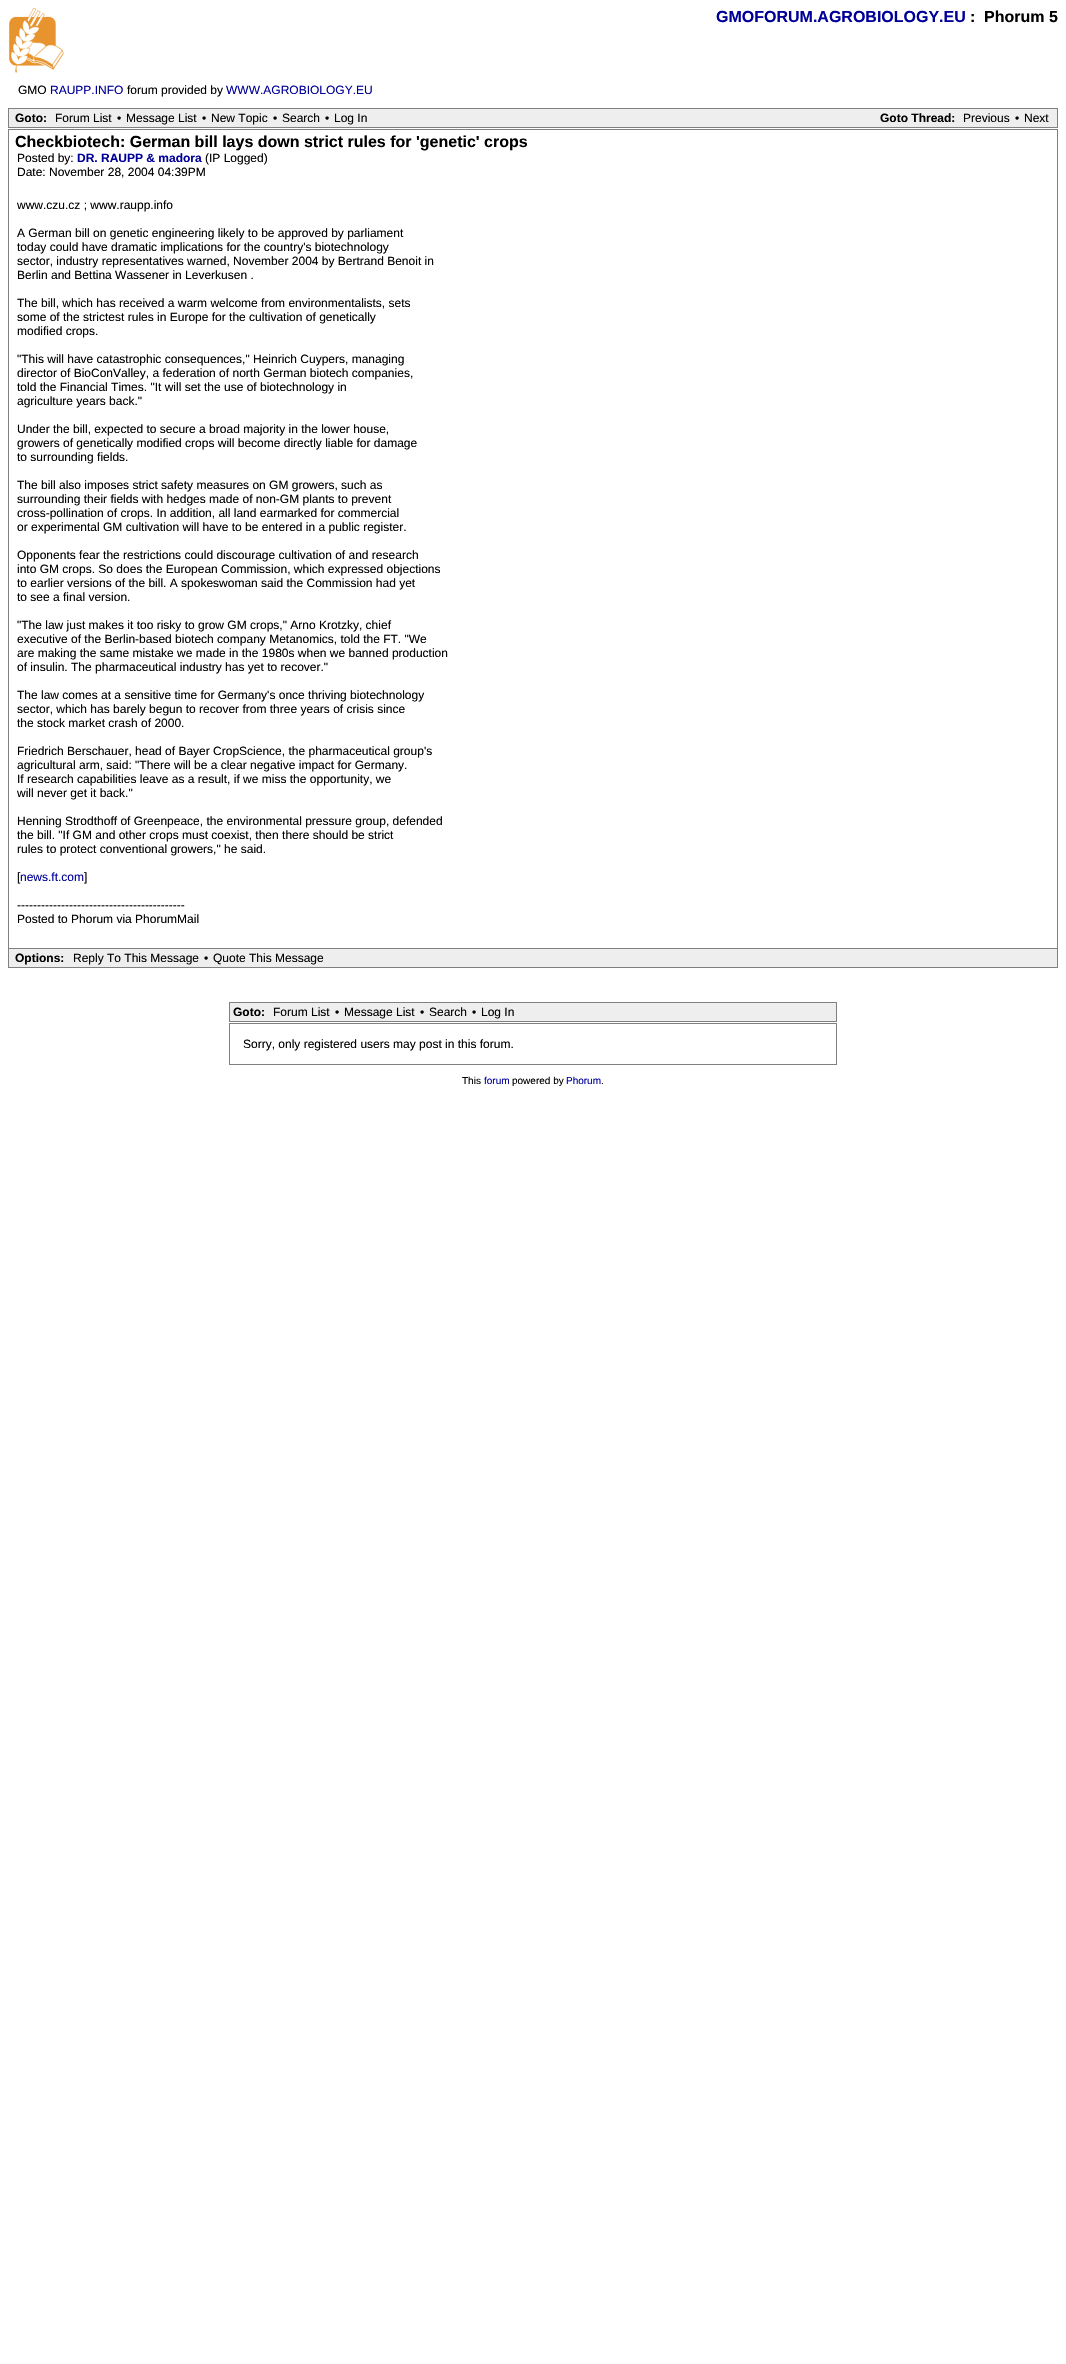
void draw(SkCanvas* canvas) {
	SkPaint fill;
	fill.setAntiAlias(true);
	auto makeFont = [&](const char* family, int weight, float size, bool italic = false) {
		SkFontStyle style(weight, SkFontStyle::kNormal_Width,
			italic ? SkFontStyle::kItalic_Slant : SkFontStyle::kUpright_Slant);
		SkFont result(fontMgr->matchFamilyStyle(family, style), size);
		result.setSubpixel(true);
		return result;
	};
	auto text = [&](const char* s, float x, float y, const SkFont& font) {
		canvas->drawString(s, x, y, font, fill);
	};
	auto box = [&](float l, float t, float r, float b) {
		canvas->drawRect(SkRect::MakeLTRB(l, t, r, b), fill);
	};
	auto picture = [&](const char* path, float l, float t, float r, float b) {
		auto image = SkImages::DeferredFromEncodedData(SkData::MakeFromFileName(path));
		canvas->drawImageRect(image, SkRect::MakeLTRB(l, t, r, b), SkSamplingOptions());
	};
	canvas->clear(0xFFFFFFFF);
	picture("image0.png", 8, 8, 64, 73);
	fill.setColor(0xFFEEEEEE);
	canvas->drawRect(SkRect::MakeLTRB(8.5f, 108.5f, 1057.5f, 127.5f), fill);
	fill.setStyle(SkPaint::kStroke_Style);
	fill.setStrokeWidth(1);
	fill.setColor(0xFF808080);
	canvas->drawRect(SkRect::MakeLTRB(8.5f, 108.5f, 1057.5f, 127.5f), fill);
	canvas->drawRect(SkRect::MakeLTRB(8.5f, 129.5f, 1057.5f, 948.5f), fill);
	fill.setStyle(SkPaint::kFill_Style);
	fill.setColor(0xFFEEEEEE);
	box(9, 949, 1057, 967);
	fill.setColor(0xFF808080);
	box(1057, 949, 1058, 968);
	box(8, 967, 1058, 968);
	box(8, 949, 9, 968);
	fill.setColor(0xFFEEEEEE);
	canvas->drawRect(SkRect::MakeLTRB(229.5f, 1002.5f, 836.5f, 1021.5f), fill);
	fill.setStyle(SkPaint::kStroke_Style);
	fill.setColor(0xFF808080);
	canvas->drawRect(SkRect::MakeLTRB(229.5f, 1002.5f, 836.5f, 1021.5f), fill);
	canvas->drawRect(SkRect::MakeLTRB(229.5f, 1023.5f, 836.5f, 1064.5f), fill);
	auto font1 = makeFont("Liberation Sans", 700, 16);
	fill.setStyle(SkPaint::kFill_Style);
	fill.setColor(0xFF000099);
	text("GMOFORUM.AGROBIOLOGY.EU", 716, 22, font1);
	fill.setColor(0xFF000000);
	text(":", 970, 22, font1);
	text("Phorum 5", 984, 22, font1);
	auto font2 = makeFont("Liberation Sans", 400, 12);
	text("GMO", 18, 94, font2);
	fill.setColor(0xFF000099);
	text("RAUPP.INFO", 50, 94, font2);
	fill.setColor(0xFF000000);
	text("forum provided by", 127, 94, font2);
	fill.setColor(0xFF000099);
	text("WWW.AGROBIOLOGY.EU", 226, 94, font2);
	auto font3 = makeFont("Liberation Sans", 700, 12);
	fill.setColor(0xFF000000);
	text("Goto:", 15, 122, font3);
	text("Forum List", 55, 122, font2);
	text("•", 117, 122, font2);
	text("Message List", 126, 122, font2);
	text("•", 202, 122, font2);
	text("New Topic", 211, 122, font2);
	text("•", 273, 122, font2);
	text("Search", 282, 122, font2);
	text("•", 325, 122, font2);
	text("Log In", 334, 122, font2);
	text("Goto Thread:", 880, 122, font3);
	text("Previous", 963, 122, font2);
	text("•", 1015, 122, font2);
	text("Next", 1024, 122, font2);
	text("Checkbiotech: German bill lays down strict rules for 'genetic' crops", 15, 147, font1);
	text("Posted by:", 17, 162, font2);
	fill.setColor(0xFF000099);
	text("DR. RAUPP & madora", 77, 162, font3);
	fill.setColor(0xFF000000);
	text("(IP Logged)", 205, 162, font2);
	text("Date: November 28, 2004 04:39PM", 17, 176, font2);
	text("www.czu.cz ; www.raupp.info", 17, 209, font2);
	text("A German bill on genetic engineering likely to be approved by parliament", 17, 237, font2);
	text("today could have dramatic implications for the country's biotechnology", 17, 251, font2);
	text("sector, industry representatives warned, November 2004 by Bertrand Benoit in", 17, 265, font2);
	text("Berlin and Bettina Wassener in Leverkusen .", 17, 279, font2);
	text("The bill, which has received a warm welcome from environmentalists, sets", 17, 307, font2);
	text("some of the strictest rules in Europe for the cultivation of genetically", 17, 321, font2);
	text("modified crops.", 17, 335, font2);
	text("\"This will have catastrophic consequences,\" Heinrich Cuypers, managing", 17, 363, font2);
	text("director of BioConValley, a federation of north German biotech companies,", 17, 377, font2);
	text("told the Financial Times. \"It will set the use of biotechnology in", 17, 391, font2);
	text("agriculture years back.\"", 17, 405, font2);
	text("Under the bill, expected to secure a broad majority in the lower house,", 17, 433, font2);
	text("growers of genetically modified crops will become directly liable for damage", 17, 447, font2);
	text("to surrounding fields.", 17, 461, font2);
	text("The bill also imposes strict safety measures on GM growers, such as", 17, 489, font2);
	text("surrounding their fields with hedges made of non-GM plants to prevent", 17, 503, font2);
	text("cross-pollination of crops. In addition, all land earmarked for commercial", 17, 517, font2);
	text("or experimental GM cultivation will have to be entered in a public register.", 17, 531, font2);
	text("Opponents fear the restrictions could discourage cultivation of and research", 17, 559, font2);
	text("into GM crops. So does the European Commission, which expressed objections", 17, 573, font2);
	text("to earlier versions of the bill. A spokeswoman said the Commission had yet", 17, 587, font2);
	text("to see a final version.", 17, 601, font2);
	text("\"The law just makes it too risky to grow GM crops,\" Arno Krotzky, chief", 17, 629, font2);
	text("executive of the Berlin-based biotech company Metanomics, told the FT. \"We", 17, 643, font2);
	text("are making the same mistake we made in the 1980s when we banned production", 17, 657, font2);
	text("of insulin. The pharmaceutical industry has yet to recover.\"", 17, 671, font2);
	text("The law comes at a sensitive time for Germany's once thriving biotechnology", 17, 699, font2);
	text("sector, which has barely begun to recover from three years of crisis since", 17, 713, font2);
	text("the stock market crash of 2000.", 17, 727, font2);
	text("Friedrich Berschauer, head of Bayer CropScience, the pharmaceutical group's", 17, 755, font2);
	text("agricultural arm, said: \"There will be a clear negative impact for Germany.", 17, 769, font2);
	text("If research capabilities leave as a result, if we miss the opportunity, we", 17, 783, font2);
	text("will never get it back.\"", 17, 797, font2);
	text("Henning Strodthoff of Greenpeace, the environmental pressure group, defended", 17, 825, font2);
	text("the bill. \"If GM and other crops must coexist, then there should be strict", 17, 839, font2);
	text("rules to protect conventional growers,\" he said.", 17, 853, font2);
	text("[", 17, 881, font2);
	fill.setColor(0xFF000099);
	text("news.ft.com", 20, 881, font2);
	fill.setColor(0xFF000000);
	text("]", 84, 881, font2);
	text("------------------------------------------", 17, 909, font2);
	text("Posted to Phorum via PhorumMail", 17, 923, font2);
	text("Options:", 15, 962, font3);
	text("Reply To This Message", 73, 962, font2);
	text("•", 204, 962, font2);
	text("Quote This Message", 213, 962, font2);
	text("Goto:", 233, 1016, font3);
	text("Forum List", 273, 1016, font2);
	text("•", 335, 1016, font2);
	text("Message List", 344, 1016, font2);
	text("•", 420, 1016, font2);
	text("Search", 429, 1016, font2);
	text("•", 472, 1016, font2);
	text("Log In", 481, 1016, font2);
	text("Sorry, only registered users may post in this forum.", 243, 1048, font2);
	auto font4 = makeFont("Liberation Sans", 400, 10);
	text("This", 462, 1084, font4);
	fill.setColor(0xFF000099);
	text("forum", 484, 1084, font4);
	fill.setColor(0xFF000000);
	text("powered by", 512, 1084, font4);
	fill.setColor(0xFF000099);
	text("Phorum", 566, 1084, font4);
	fill.setColor(0xFF000000);
	text(".", 601, 1084, font4);
}
